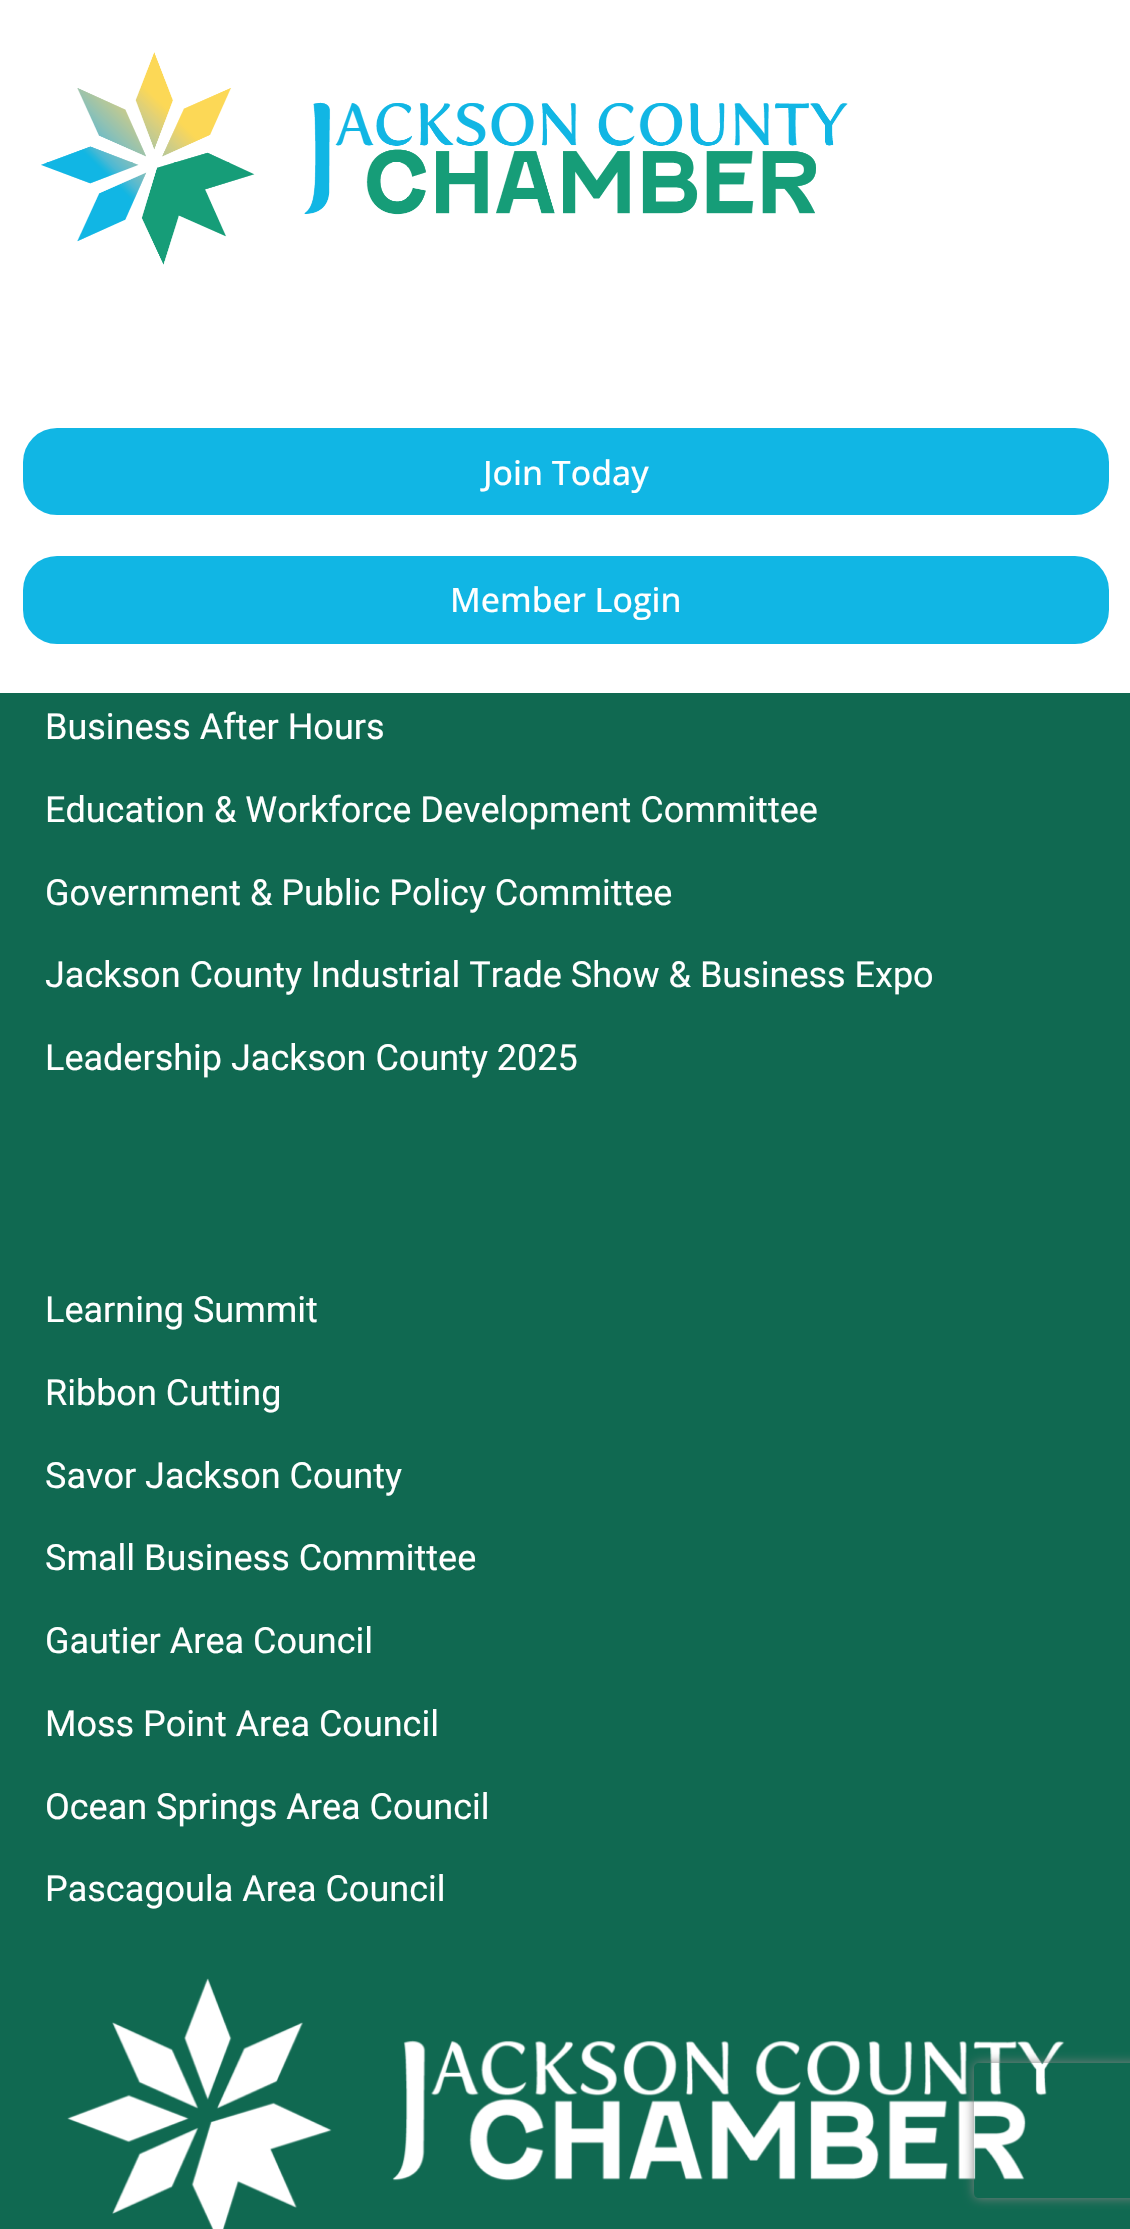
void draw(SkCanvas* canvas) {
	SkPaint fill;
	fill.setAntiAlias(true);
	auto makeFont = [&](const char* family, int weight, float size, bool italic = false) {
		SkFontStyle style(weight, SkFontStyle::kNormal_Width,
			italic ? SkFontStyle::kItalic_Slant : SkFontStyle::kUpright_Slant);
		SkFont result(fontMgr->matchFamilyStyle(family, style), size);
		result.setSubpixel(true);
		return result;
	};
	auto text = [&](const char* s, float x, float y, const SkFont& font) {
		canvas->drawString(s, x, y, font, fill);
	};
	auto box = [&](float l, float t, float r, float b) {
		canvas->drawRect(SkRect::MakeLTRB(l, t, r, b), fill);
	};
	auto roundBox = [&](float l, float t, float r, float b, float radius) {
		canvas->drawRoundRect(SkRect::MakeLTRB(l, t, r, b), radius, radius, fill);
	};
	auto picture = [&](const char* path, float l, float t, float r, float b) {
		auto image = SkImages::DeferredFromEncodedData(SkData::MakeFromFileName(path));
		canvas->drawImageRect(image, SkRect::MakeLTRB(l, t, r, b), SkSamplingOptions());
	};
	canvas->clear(0xFF106951);
	fill.setColor(0xFFFFFFFF);
	box(0, 0, 1130, 693);
	picture("image0.png", 41, 52, 848, 265);
	fill.setColor(0xFF11B6E4);
	roundBox(23, 428, 1109, 515, 34);
	roundBox(23, 556, 1109, 644, 34);
	picture("image1.png", 67, 1978, 1065, 2229);
	canvas->save();
	canvas->clipPath(SkPathBuilder(SkPathFillType::kEvenOdd).moveTo(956, 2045).lineTo(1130, 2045).lineTo(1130, 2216).lineTo(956, 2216).close().moveTo(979, 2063).lineTo(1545, 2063).cubicTo(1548, 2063, 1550, 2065, 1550, 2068).lineTo(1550, 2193).cubicTo(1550, 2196, 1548, 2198, 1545, 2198).lineTo(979, 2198).cubicTo(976, 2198, 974, 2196, 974, 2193).lineTo(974, 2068).cubicTo(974, 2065, 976, 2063, 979, 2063).close().detach(), true);
	fill.setColor(0xFF808080);
	fill.setMaskFilter(SkMaskFilter::MakeBlur(kNormal_SkBlurStyle, 5.5f));
	canvas->drawRoundRect(SkRect::MakeLTRB(974, 2063, 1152, 2198), 5, 5, fill);
	fill.setMaskFilter(nullptr);
	canvas->restore();
	auto font1 = makeFont("Open Sans", 500, 33.75f);
	fill.setColor(0xFFFFFFFF);
	text("Join Today", 483, 485, font1);
	text("Member Login", 450, 612, font1);
	auto font2 = makeFont("Roboto", 400, 36);
	text("Business After Hours", 45, 739, font2);
	text("Education & Workforce Development Committee", 45, 822, font2);
	text("Government & Public Policy Committee", 45, 905, font2);
	text("Jackson County Industrial Trade Show & Business Expo", 45, 987, font2);
	text("Leadership Jackson County 2025", 45, 1070, font2);
	text("Learning Summit", 45, 1322, font2);
	text("Ribbon Cutting", 45, 1405, font2);
	text("Savor Jackson County", 45, 1488, font2);
	text("Small Business Committee", 45, 1570, font2);
	text("Gautier Area Council", 45, 1653, font2);
	text("Moss Point Area Council", 45, 1736, font2);
	text("Ocean Springs Area Council", 45, 1819, font2);
	text("Pascagoula Area Council", 45, 1901, font2);
}
